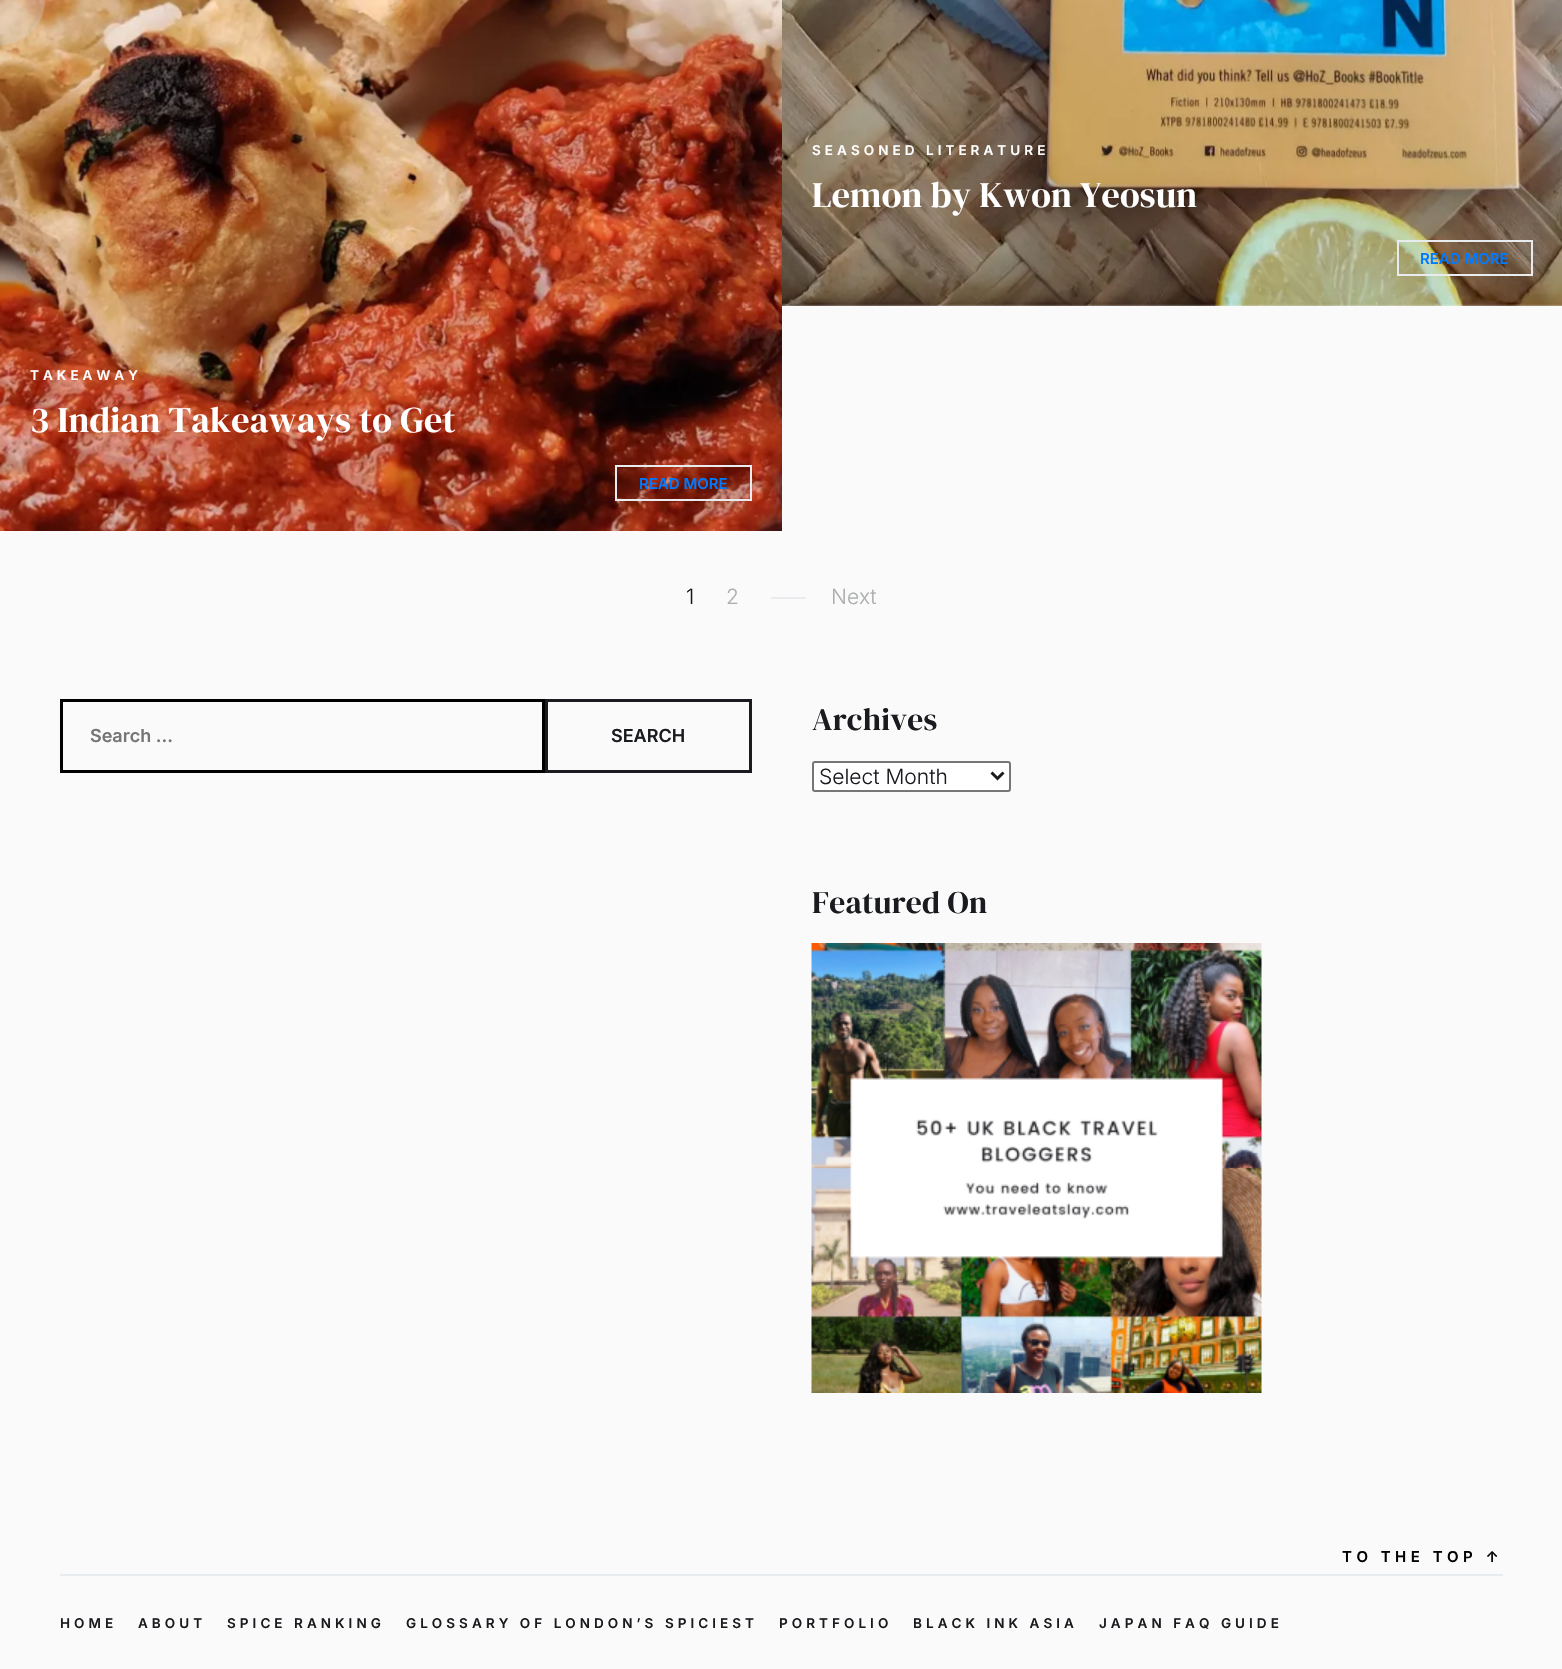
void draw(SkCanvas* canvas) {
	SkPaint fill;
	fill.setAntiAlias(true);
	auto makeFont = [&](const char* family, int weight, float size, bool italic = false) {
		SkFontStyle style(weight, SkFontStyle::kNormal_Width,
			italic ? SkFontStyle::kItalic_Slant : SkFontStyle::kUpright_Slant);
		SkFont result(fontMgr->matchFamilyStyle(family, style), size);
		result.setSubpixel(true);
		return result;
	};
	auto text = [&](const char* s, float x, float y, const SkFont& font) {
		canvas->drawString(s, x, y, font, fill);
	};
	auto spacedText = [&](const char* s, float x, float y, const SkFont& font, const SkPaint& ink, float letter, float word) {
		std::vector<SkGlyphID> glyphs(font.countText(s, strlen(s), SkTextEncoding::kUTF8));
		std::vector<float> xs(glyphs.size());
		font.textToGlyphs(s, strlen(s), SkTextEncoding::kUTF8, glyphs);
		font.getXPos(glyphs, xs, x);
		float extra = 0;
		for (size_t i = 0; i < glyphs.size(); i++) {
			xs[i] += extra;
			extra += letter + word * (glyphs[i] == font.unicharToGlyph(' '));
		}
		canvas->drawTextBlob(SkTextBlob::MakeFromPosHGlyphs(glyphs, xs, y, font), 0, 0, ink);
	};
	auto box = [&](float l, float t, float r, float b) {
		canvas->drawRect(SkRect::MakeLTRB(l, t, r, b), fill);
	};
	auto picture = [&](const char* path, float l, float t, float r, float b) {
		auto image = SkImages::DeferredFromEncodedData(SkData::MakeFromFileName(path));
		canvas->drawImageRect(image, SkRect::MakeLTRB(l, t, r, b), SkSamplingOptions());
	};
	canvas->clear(0xFFFAFAFA);
	picture("image1.png", 0, 0, 782, 531);
	fill.setColor(0x4DCED0D4);
	canvas->drawCircle(0, 0, 45, fill);
	picture("image0.png", 782, 0, 1562, 306);
	fill.setStyle(SkPaint::kStroke_Style);
	fill.setStrokeWidth(2);
	fill.setColor(0xFFE9ECEF);
	canvas->drawRect(SkRect::MakeLTRB(1398, 241, 1532, 275), fill);
	canvas->drawRect(SkRect::MakeLTRB(616, 466, 751, 500), fill);
	fill.setStyle(SkPaint::kFill_Style);
	fill.setColor(0xFFEAEBEE);
	box(771, 597, 806, 599);
	fill.setStyle(SkPaint::kStroke_Style);
	fill.setStrokeWidth(3);
	fill.setColor(0xFF000000);
	canvas->drawRect(SkRect::MakeLTRB(61.5f, 700.5f, 543.5f, 771.5f), fill);
	fill.setColor(0xFF1A1B1F);
	canvas->drawRect(SkRect::MakeLTRB(546.5f, 700.5f, 750.5f, 771.5f), fill);
	fill.setStyle(SkPaint::kFill_Style);
	fill.setColor(0xFFFFFFFF);
	canvas->drawRoundRect(SkRect::MakeLTRB(813, 762, 1010, 791), 2, 2, fill);
	fill.setStyle(SkPaint::kStroke_Style);
	fill.setStrokeWidth(2);
	fill.setColor(0xFF767676);
	canvas->drawRoundRect(SkRect::MakeLTRB(813, 762, 1010, 791), 2, 2, fill);
	fill.setStrokeWidth(3);
	fill.setColor(0xFF1A1B1F);
	canvas->drawPath(SkPathBuilder().moveTo(991.5f, 772.5f).lineTo(997.5f, 778.5f).lineTo(1003.5f, 772.5f).detach(), fill);
	picture("image2.png", 811, 943, 1262, 1393);
	fill.setStyle(SkPaint::kFill_Style);
	fill.setColor(0xFFE9ECEF);
	box(60, 1574, 1503, 1576);
	auto font1 = makeFont("Inter", 600, 13.5f);
	fill.setColor(0xFFFFFFFF);
	spacedText("SEASONED LITERATURE", 812, 155, font1, fill, 4.05f, 0);
	auto font2 = makeFont("DM Serif Display", 400, 36);
	spacedText("Lemon by Kwon Yeosun", 812, 207, font2, fill, 0.2f, 0);
	auto font3 = makeFont("Inter", 600, 15);
	fill.setColor(0xFF007AFF);
	text("READ MORE", 1420, 264, font3);
	fill.setColor(0xFFFFFFFF);
	spacedText("TAKEAWAY", 30, 380, font1, fill, 4.05f, 0);
	spacedText("3 Indian Takeaways to Get", 30, 432, font2, fill, 0.2f, 0);
	fill.setColor(0xFF007AFF);
	text("READ MORE", 639, 489, font3);
	auto font4 = makeFont("Inter", 300, 21);
	fill.setColor(0xFF161719);
	text("1", 686, 604, font4);
	fill.setColor(0xFFABADAF);
	text("2", 726, 604, font4);
	text("Next", 831, 604, font4);
	auto font5 = makeFont("Inter", 600, 18);
	fill.setColor(0xFF757575);
	text("Search …", 90, 742, font5);
	fill.setColor(0xFF1A1B1F);
	text("SEARCH", 611, 742, font5);
	auto font6 = makeFont("DM Serif Display", 400, 31.5f);
	spacedText("Archives", 812, 730, font6, fill, 0.25f, 0);
	text("Select Month", 819, 784, font4);
	spacedText("Featured On", 812, 913, font6, fill, 0.25f, 0);
	fill.setColor(0xFF000000);
	spacedText("TO THE TOP ↑", 1342, 1562, font3, fill, 4.5f, 0);
	fill.setColor(0xFF1A1B1F);
	spacedText("HOME", 60, 1628, font1, fill, 4.05f, 0);
	spacedText("ABOUT", 138, 1628, font1, fill, 4.05f, 0);
	spacedText("SPICE RANKING", 227, 1628, font1, fill, 4.05f, 0);
	spacedText("GLOSSARY OF LONDON’S SPICIEST", 406, 1628, font1, fill, 4.05f, 0);
	spacedText("PORTFOLIO", 779, 1628, font1, fill, 4.05f, 0);
	spacedText("BLACK INK ASIA", 913, 1628, font1, fill, 4.05f, 0);
	spacedText("JAPAN FAQ GUIDE", 1099, 1628, font1, fill, 4.05f, 0);
}
